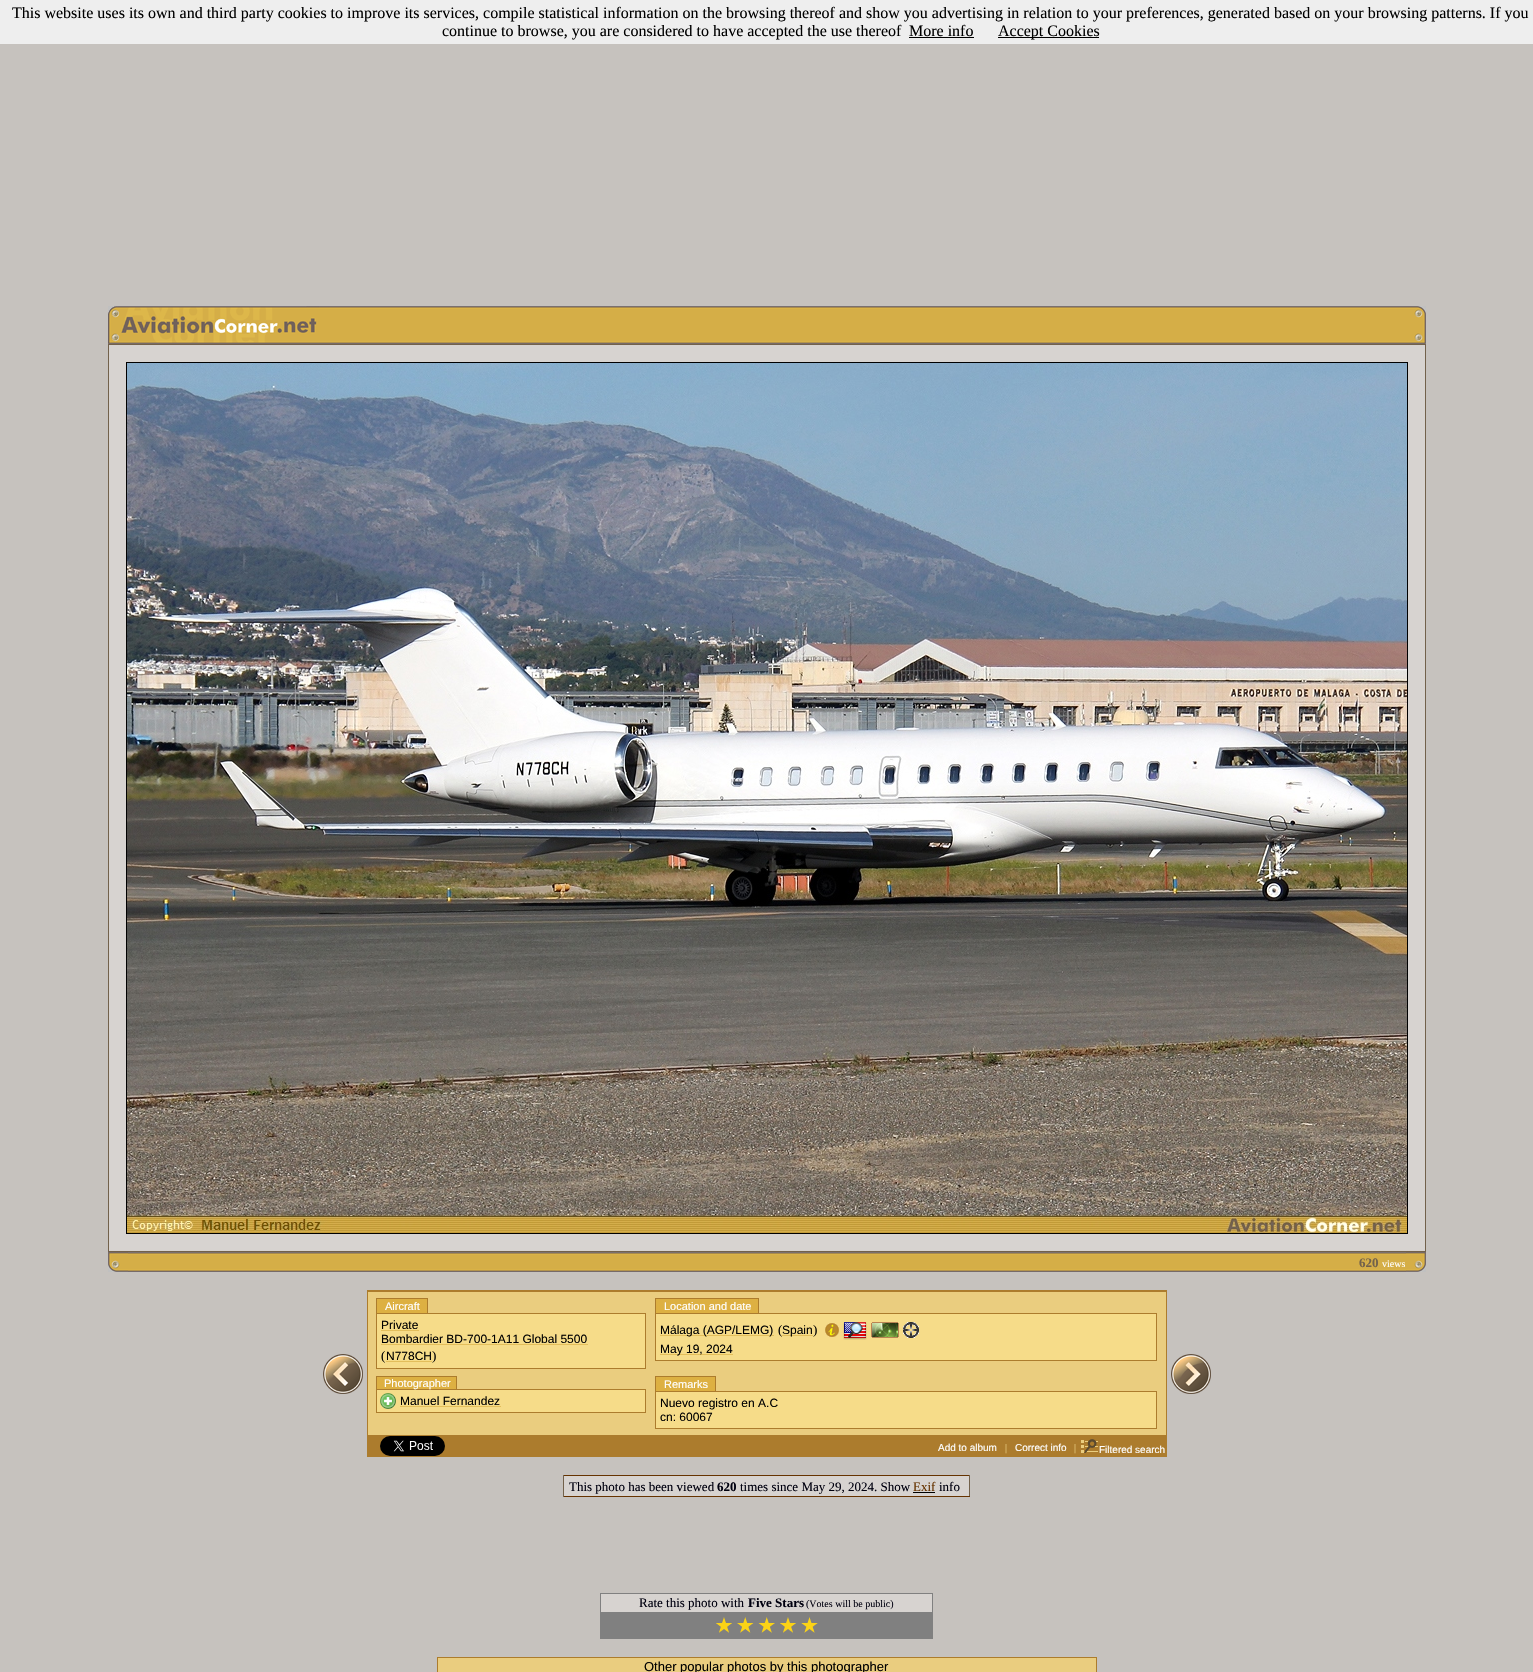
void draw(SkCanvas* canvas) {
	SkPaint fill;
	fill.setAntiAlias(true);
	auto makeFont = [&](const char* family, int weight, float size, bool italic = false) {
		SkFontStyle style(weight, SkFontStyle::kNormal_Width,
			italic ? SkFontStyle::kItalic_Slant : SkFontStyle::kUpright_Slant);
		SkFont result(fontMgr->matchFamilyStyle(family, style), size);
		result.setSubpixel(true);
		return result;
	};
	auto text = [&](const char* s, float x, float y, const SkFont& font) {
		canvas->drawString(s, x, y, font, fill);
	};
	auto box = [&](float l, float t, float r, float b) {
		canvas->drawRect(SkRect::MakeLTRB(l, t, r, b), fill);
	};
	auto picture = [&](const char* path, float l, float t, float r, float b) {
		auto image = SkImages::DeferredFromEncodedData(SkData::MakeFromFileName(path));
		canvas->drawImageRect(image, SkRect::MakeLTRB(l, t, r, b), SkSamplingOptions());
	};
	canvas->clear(0xFFC6C2BE);
	fill.setColor(0xFFEEEEEE);
	box(0, 0, 1533, 44);
	fill.setColor(0xFF000000);
	box(909, 37, 974, 38);
	box(998, 37, 1099, 38);
	picture("image0.png", 108, 306, 319, 344);
	picture("image1.png", 319, 306, 1406, 344);
	picture("image2.png", 1406, 306, 1426, 344);
	fill.setColor(0xFF72614B);
	box(108, 344, 1426, 345);
	box(108, 345, 109, 1251);
	fill.setColor(0xFFD7D3D0);
	box(109, 345, 1425, 1251);
	fill.setStyle(SkPaint::kStroke_Style);
	fill.setStrokeWidth(1);
	fill.setColor(0xFF000000);
	canvas->drawRect(SkRect::MakeLTRB(126.5f, 362.5f, 1407.5f, 1233.5f), fill);
	picture("image3.png", 127, 363, 1407, 1233);
	fill.setStyle(SkPaint::kFill_Style);
	fill.setColor(0xFF72614B);
	box(1425, 345, 1426, 1251);
	box(108, 1251, 1426, 1252);
	picture("image4.png", 108, 1252, 128, 1272);
	picture("image5.png", 128, 1252, 1406, 1272);
	picture("image6.png", 1406, 1252, 1426, 1272);
	picture("image7.png", 323, 1354, 363, 1394);
	fill.setColor(0xFFAC7C2D);
	box(367, 1290, 1167, 1291);
	box(1166, 1290, 1167, 1457);
	box(367, 1291, 1166, 1292);
	box(367, 1290, 368, 1457);
	fill.setColor(0xFFEACD7F);
	box(368, 1292, 1166, 1435);
	fill.setColor(0xFFDDB042);
	box(377, 1299, 427, 1313);
	fill.setColor(0xFFAC7C2D);
	box(376, 1298, 428, 1299);
	box(376, 1313, 646, 1314);
	box(427, 1298, 428, 1314);
	box(645, 1313, 646, 1369);
	box(376, 1368, 646, 1369);
	box(376, 1313, 377, 1369);
	box(376, 1298, 377, 1314);
	fill.setColor(0xFFF6DC89);
	box(377, 1314, 645, 1368);
	fill.setColor(0xFFE3BE5B);
	box(381, 1330, 419, 1331);
	box(381, 1344, 588, 1345);
	box(386, 1361, 432, 1362);
	fill.setColor(0xFFDDB042);
	box(656, 1299, 758, 1313);
	fill.setColor(0xFFAC7C2D);
	box(655, 1298, 759, 1299);
	box(655, 1313, 1157, 1314);
	box(758, 1298, 759, 1314);
	box(1156, 1313, 1157, 1361);
	box(655, 1360, 1157, 1361);
	box(655, 1313, 656, 1361);
	box(655, 1298, 656, 1314);
	fill.setColor(0xFFF6DC89);
	box(656, 1314, 1156, 1360);
	fill.setColor(0xFFE3BE5B);
	box(660, 1335, 774, 1336);
	box(782, 1335, 813, 1336);
	picture("image8.png", 825, 1323, 839, 1337);
	picture("image9.png", 843, 1322, 867, 1340);
	picture("image10.png", 871, 1322, 899, 1338);
	picture("image11.png", 903, 1322, 919, 1338);
	box(660, 1354, 733, 1355);
	fill.setColor(0xFFDDB042);
	box(377, 1377, 456, 1389);
	fill.setColor(0xFFAC7C2D);
	box(376, 1376, 457, 1377);
	box(376, 1389, 646, 1390);
	box(456, 1376, 457, 1390);
	box(645, 1389, 646, 1413);
	box(376, 1412, 646, 1413);
	box(376, 1389, 377, 1413);
	box(376, 1376, 377, 1390);
	fill.setColor(0xFFF6DC89);
	box(377, 1390, 645, 1412);
	picture("image12.png", 380, 1393, 396, 1409);
	fill.setColor(0xFFE3BE5B);
	box(400, 1406, 501, 1407);
	fill.setColor(0xFFDDB042);
	box(656, 1377, 715, 1391);
	fill.setColor(0xFFAC7C2D);
	box(655, 1376, 716, 1377);
	box(655, 1391, 1157, 1392);
	box(715, 1376, 716, 1392);
	box(1156, 1391, 1157, 1429);
	box(655, 1428, 1157, 1429);
	box(655, 1391, 656, 1429);
	box(655, 1376, 656, 1392);
	fill.setColor(0xFFF6DC89);
	box(656, 1392, 1156, 1428);
	fill.setColor(0xFFAC7C2D);
	box(368, 1436, 1166, 1457);
	box(367, 1435, 1167, 1436);
	picture("image13.png", 380, 1436, 445, 1456);
	picture("image14.png", 1081, 1439, 1098, 1453);
	picture("image15.png", 1171, 1354, 1211, 1394);
	fill.setColor(0xFF663300);
	box(563, 1475, 970, 1476);
	fill.setColor(0xFF72614B);
	box(969, 1475, 970, 1497);
	fill.setColor(0xFF663300);
	box(563, 1496, 970, 1497);
	fill.setColor(0xFF72614B);
	box(563, 1475, 564, 1497);
	fill.setColor(0xFFD7D3D0);
	box(564, 1476, 969, 1496);
	fill.setColor(0xFF000000);
	box(913, 1492, 935, 1493);
	fill.setColor(0xFF808080);
	box(600, 1593, 933, 1639);
	fill.setColor(0xFFD7D3D0);
	box(601, 1594, 932, 1612);
	picture("image16.png", 716, 1617, 818, 1633);
	fill.setColor(0xFFAC7C2D);
	box(437, 1657, 1097, 1658);
	box(1096, 1657, 1097, 1672);
	box(437, 1657, 438, 1672);
	fill.setColor(0xFFEACD7F);
	box(438, 1658, 1096, 1672);
	auto font1 = makeFont("Liberation Serif", 400, 16);
	fill.setColor(0xFF000000);
	text("This website uses its own and third party cookies to improve its services, compile statistical information on the browsing thereof and show you advertising in relation to your preferences, generated based on your browsing patterns. If you", 12, 18, font1);
	text("continue to browse, you are considered to have accepted the use thereof", 442, 36, font1);
	text("More info", 909, 36, font1);
	text("Accept Cookies", 998, 36, font1);
	auto font2 = makeFont("Liberation Serif", 700, 13);
	fill.setColor(0xFF72614B);
	text("620", 1359, 1267, font2);
	auto font3 = makeFont("Liberation Serif", 400, 10);
	fill.setColor(0xFFFFFFFF);
	text("views", 1382, 1267, font3);
	auto font4 = makeFont("Liberation Sans", 400, 11);
	text("Aircraft", 385, 1310, font4);
	auto font5 = makeFont("Liberation Sans", 400, 12);
	fill.setColor(0xFF000000);
	text("Private", 381, 1329, font5);
	text("Bombardier BD-700-1A11 Global 5500", 381, 1343, font5);
	auto font6 = makeFont("Liberation Serif", 400, 13);
	text("(", 381, 1360, font6);
	text("N778CH", 386, 1360, font5);
	text(")", 432, 1360, font6);
	fill.setColor(0xFFFFFFFF);
	text("Location and date", 664, 1310, font4);
	fill.setColor(0xFF000000);
	text("Málaga (AGP/LEMG)", 660, 1334, font5);
	text("(", 778, 1334, font6);
	text("Spain", 782, 1334, font5);
	text(")", 813, 1334, font6);
	text("May 19, 2024", 660, 1353, font5);
	fill.setColor(0xFFFFFFFF);
	text("Photographer", 384, 1387, font4);
	fill.setColor(0xFF000000);
	text("Manuel Fernandez", 400, 1405, font5);
	fill.setColor(0xFFFFFFFF);
	text("Remarks", 664, 1388, font4);
	fill.setColor(0xFF000000);
	text("Nuevo registro en A.C", 660, 1407, font5);
	text("cn: 60067", 660, 1421, font5);
	auto font7 = makeFont("Liberation Sans", 400, 10);
	fill.setColor(0xFFFFFFFF);
	text("Add to album", 938, 1451, font7);
	fill.setColor(0xFFEACD7F);
	text("|", 1005, 1451, font3);
	fill.setColor(0xFFFFFFFF);
	text("Correct info", 1015, 1451, font7);
	fill.setColor(0xFFEACD7F);
	text("|", 1074, 1451, font3);
	fill.setColor(0xFFFFFFFF);
	text("Filtered search", 1099, 1453, font7);
	fill.setColor(0xFF00000F);
	text("This photo has been viewed", 569, 1491, font6);
	text("620", 717, 1491, font2);
	text("times since May 29, 2024. Show", 740, 1491, font6);
	fill.setColor(0xFF663300);
	text("Exif", 913, 1491, font6);
	fill.setColor(0xFF00000F);
	text("info", 939, 1491, font6);
	text("Rate this photo with", 639, 1607, font6);
	text("Five Stars", 748, 1607, font2);
	text("(Votes will be public)", 806, 1607, font3);
	auto font8 = makeFont("Liberation Sans", 400, 13);
	fill.setColor(0xFF000000);
	text("Other popular photos by this photographer", 644, 1671, font8);
}
